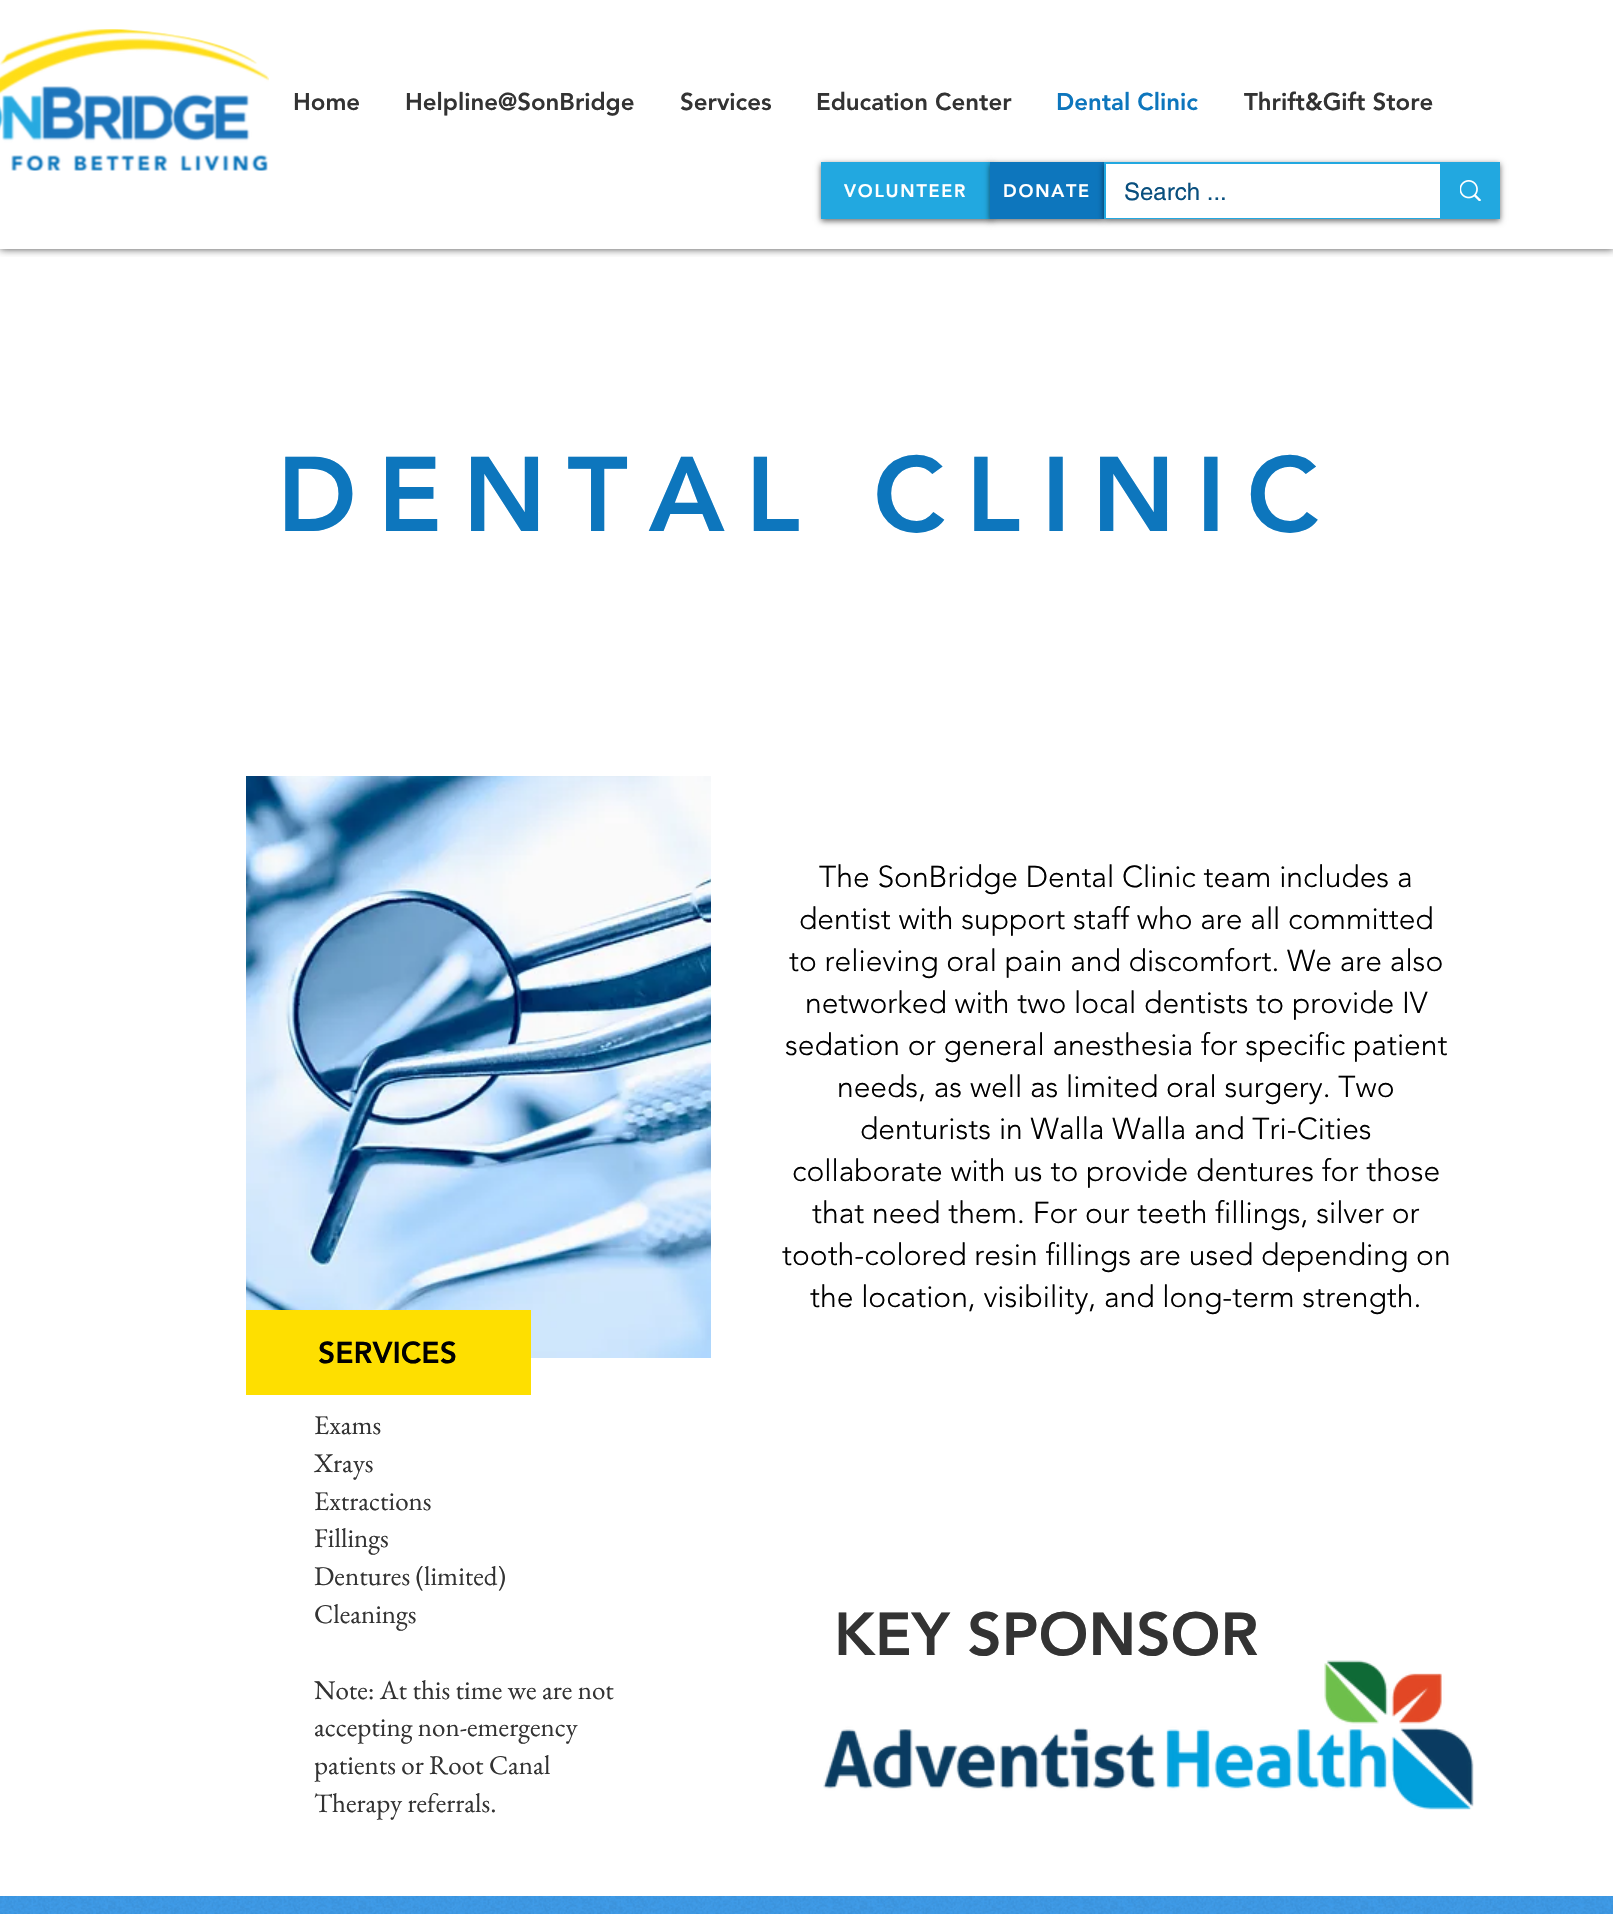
void draw(SkCanvas* canvas) {
	SkPaint fill;
	fill.setAntiAlias(true);
	auto makeFont = [&](const char* family, int weight, float size, bool italic = false) {
		SkFontStyle style(weight, SkFontStyle::kNormal_Width,
			italic ? SkFontStyle::kItalic_Slant : SkFontStyle::kUpright_Slant);
		SkFont result(fontMgr->matchFamilyStyle(family, style), size);
		result.setSubpixel(true);
		return result;
	};
	auto text = [&](const char* s, float x, float y, const SkFont& font) {
		canvas->drawString(s, x, y, font, fill);
	};
	auto spacedText = [&](const char* s, float x, float y, const SkFont& font, const SkPaint& ink, float letter, float word) {
		std::vector<SkGlyphID> glyphs(font.countText(s, strlen(s), SkTextEncoding::kUTF8));
		std::vector<float> xs(glyphs.size());
		font.textToGlyphs(s, strlen(s), SkTextEncoding::kUTF8, glyphs);
		font.getXPos(glyphs, xs, x);
		float extra = 0;
		for (size_t i = 0; i < glyphs.size(); i++) {
			xs[i] += extra;
			extra += letter + word * (glyphs[i] == font.unicharToGlyph(' '));
		}
		canvas->drawTextBlob(SkTextBlob::MakeFromPosHGlyphs(glyphs, xs, y, font), 0, 0, ink);
	};
	auto box = [&](float l, float t, float r, float b) {
		canvas->drawRect(SkRect::MakeLTRB(l, t, r, b), fill);
	};
	auto picture = [&](const char* path, float l, float t, float r, float b) {
		auto image = SkImages::DeferredFromEncodedData(SkData::MakeFromFileName(path));
		canvas->drawImageRect(image, SkRect::MakeLTRB(l, t, r, b), SkSamplingOptions());
	};
	canvas->clear(0xFFFFFFFF);
	canvas->save();
	canvas->clipRect(SkRect::MakeLTRB(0, 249, 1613, 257));
	fill.setColor(0xB3000000);
	fill.setMaskFilter(SkMaskFilter::MakeBlur(kNormal_SkBlurStyle, 4));
	canvas->drawRect(SkRect::MakeLTRB(0, 0, 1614, 249), fill);
	fill.setMaskFilter(nullptr);
	canvas->restore();
	picture("image0.png", 0, 29, 269, 171);
	fill.setColor(0x99000000);
	fill.setMaskFilter(SkMaskFilter::MakeBlur(kNormal_SkBlurStyle, 3));
	canvas->drawRect(SkRect::MakeLTRB(821, 164, 992, 221), fill);
	fill.setMaskFilter(nullptr);
	fill.setColor(0xFF22A8E0);
	box(821, 162, 990, 219);
	fill.setColor(0x99000000);
	fill.setMaskFilter(SkMaskFilter::MakeBlur(kNormal_SkBlurStyle, 3));
	canvas->drawRect(SkRect::MakeLTRB(990, 164, 1104, 221), fill);
	fill.setMaskFilter(nullptr);
	fill.setColor(0xFF0D76BD);
	box(990, 162, 1104, 219);
	fill.setColor(0x99000000);
	fill.setMaskFilter(SkMaskFilter::MakeBlur(kNormal_SkBlurStyle, 3));
	canvas->drawRect(SkRect::MakeLTRB(1104, 164, 1500, 221), fill);
	fill.setMaskFilter(nullptr);
	fill.setStyle(SkPaint::kStroke_Style);
	fill.setStrokeWidth(2);
	fill.setColor(0xFF22A8E0);
	canvas->drawRect(SkRect::MakeLTRB(1105, 163, 1499, 218), fill);
	fill.setStyle(SkPaint::kFill_Style);
	fill.setColor(0xFFFFFFFF);
	box(1106, 164, 1440, 218);
	fill.setColor(0xFF22A8E0);
	box(1440, 164, 1498, 217);
	picture("image1.png", 1460, 180, 1481, 201);
	picture("image2.png", 246, 776, 711, 1358);
	fill.setColor(0xFFFEDF00);
	box(246, 1310, 531, 1395);
	picture("image3.png", 823, 1660, 1474, 1810);
	fill.setColor(0xFF3D9BE9);
	box(0, 1896, 1613, 1914);
	picture("image4.png", 0, 1896, 1613, 1914);
	auto font1 = makeFont("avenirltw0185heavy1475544", 900, 24);
	fill.setColor(0xFF333333);
	text("Home", 293, 110, font1);
	text("Helpline@SonBridge", 405, 110, font1);
	text("Services", 680, 110, font1);
	text("Education Center", 816, 110, font1);
	fill.setColor(0xFF0D76BD);
	text("Dental Clinic", 1056, 110, font1);
	fill.setColor(0xFF333333);
	text("Thrift&Gift Store", 1244, 110, font1);
	auto font2 = makeFont("avenirltw0185heavy1475544", 900, 18);
	fill.setColor(0xFFFFFFFF);
	spacedText("VOLUNTEER", 844, 197, font2, fill, 1.75f, 0);
	spacedText("DONATE", 1003, 197, font2, fill, 1.75f, 0);
	auto font3 = makeFont("helvetica", 400, 24);
	fill.setColor(0xFF094F7E);
	text("Search ...", 1124, 200, font3);
	auto font4 = makeFont("avenirltw0185heavy1475544", 900, 105);
	fill.setColor(0xFF0D76BD);
	spacedText("DENTAL CLINIC", 277, 531, font4, fill, 21, 0);
	auto font5 = makeFont("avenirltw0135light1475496", 300, 30);
	fill.setColor(0xFF000000);
	text("The SonBridge Dental Clinic team includes a", 819, 887, font5);
	text("dentist with support staff who are all committed", 799, 929, font5);
	text("to relieving oral pain and discomfort. We are also", 789, 971, font5);
	text("networked with two local dentists to provide IV", 805, 1013, font5);
	text("sedation or general anesthesia for specific patient", 785, 1055, font5);
	text("needs, as well as limited oral surgery. Two", 837, 1097, font5);
	text("denturists in Walla Walla and Tri-Cities", 860, 1139, font5);
	text("collaborate with us to provide dentures for those", 792, 1181, font5);
	text("that need them. For our teeth fillings, silver or", 812, 1223, font5);
	text("tooth-colored resin fillings are used depending on", 782, 1265, font5);
	text("the location, visibility, and long-term strength.", 810, 1307, font5);
	auto font6 = makeFont("avenirltw0185heavy1475544", 900, 30);
	text("SERVICES", 318, 1363, font6);
	auto font7 = makeFont("EB Garamond", 400, 27);
	fill.setColor(0xFF333333);
	text("Exams", 314, 1434, font7);
	text("Xrays", 314, 1472, font7);
	text("Extractions", 314, 1510, font7);
	text("Fillings", 314, 1547, font7);
	text("Dentures (limited)", 314, 1585, font7);
	text("Cleanings", 314, 1623, font7);
	text("Note: At this time we are not", 314, 1699, font7);
	text("accepting non-emergency", 314, 1736, font7);
	text("patients or Root Canal", 314, 1774, font7);
	text("Therapy referrals.", 314, 1812, font7);
	auto font8 = makeFont("avenirltw0185heavy1475544", 900, 60);
	text("KEY SPONSOR", 834, 1655, font8);
}
